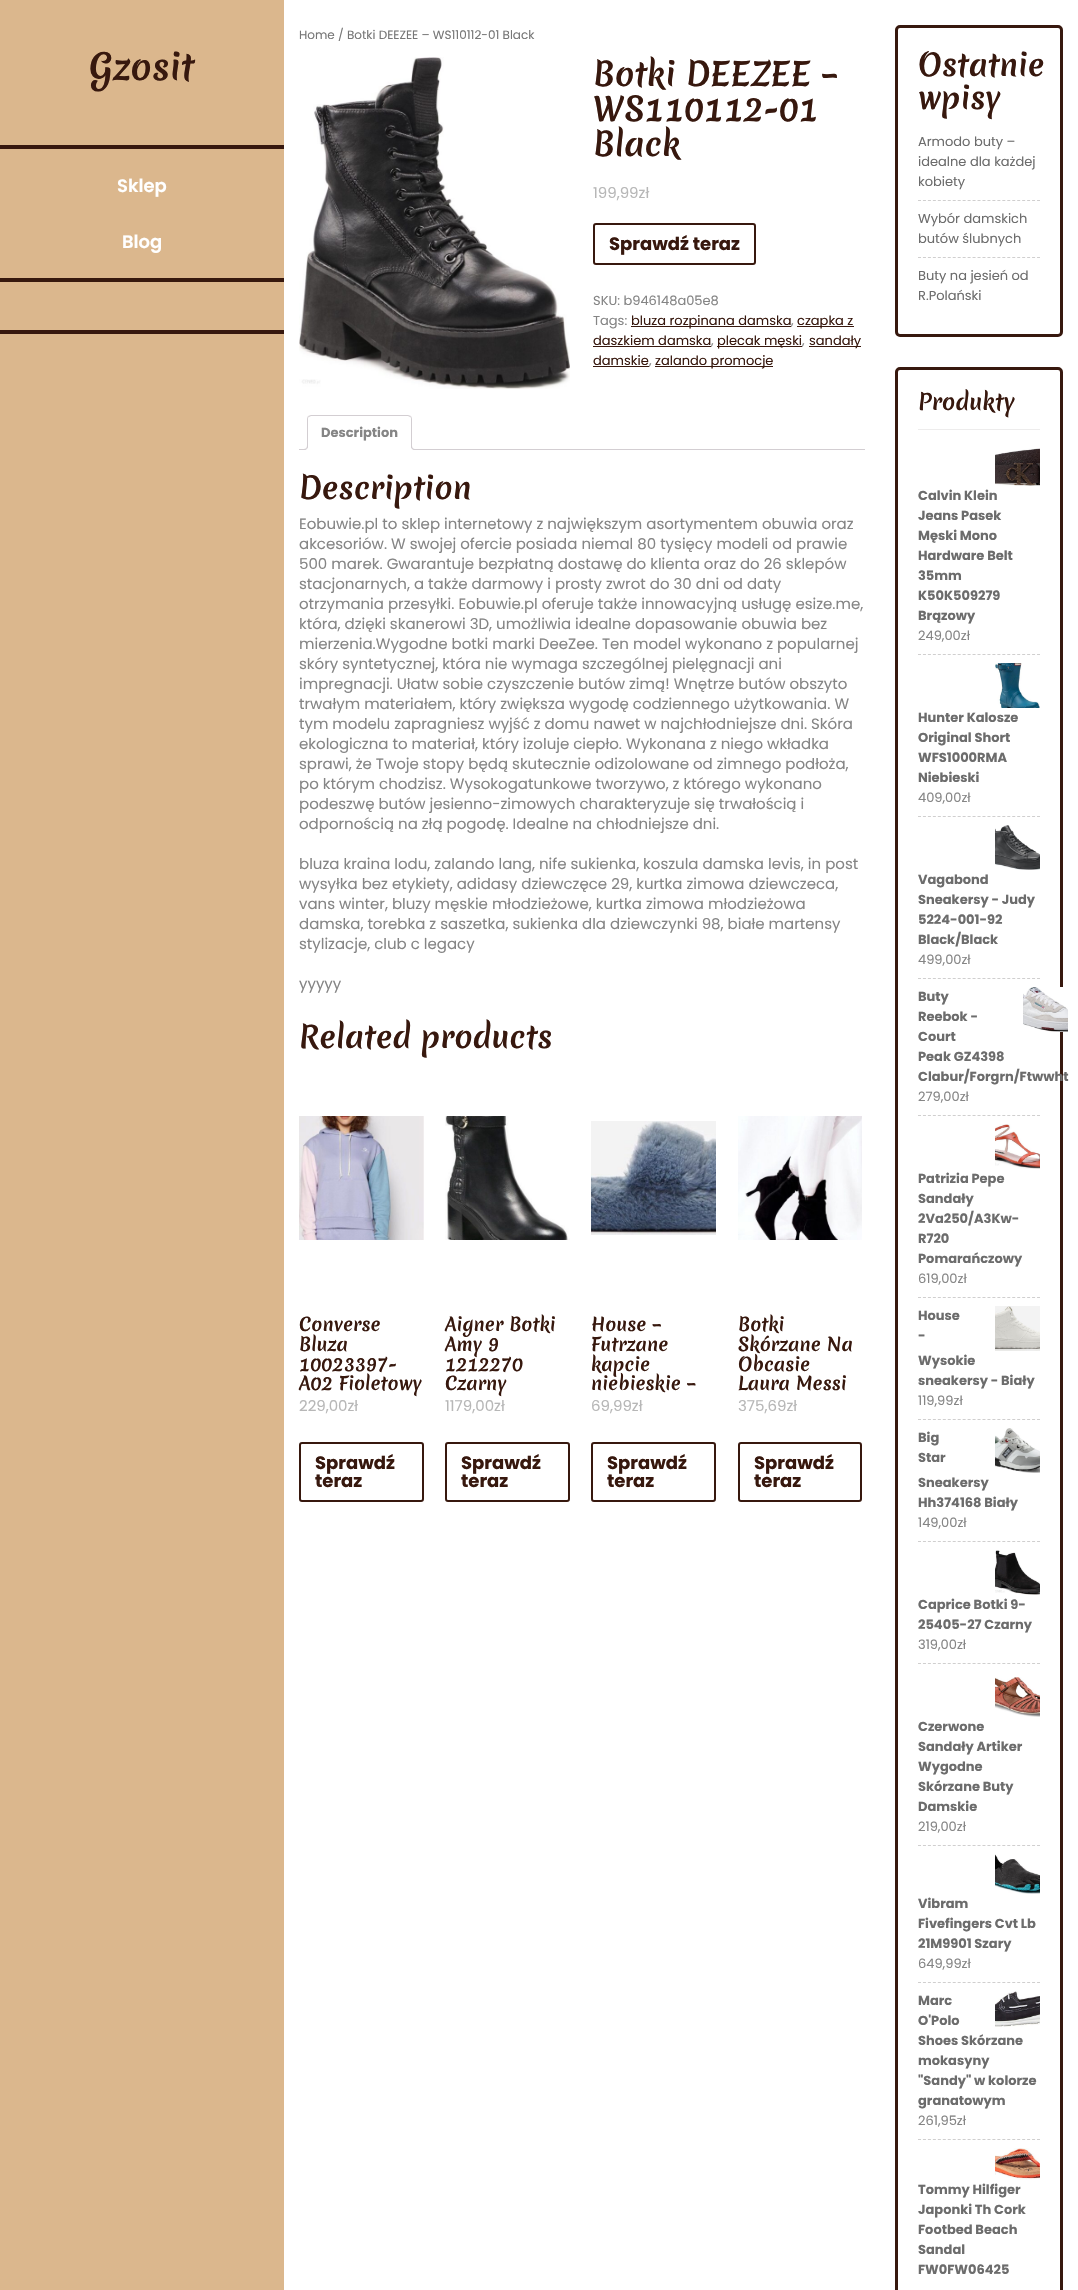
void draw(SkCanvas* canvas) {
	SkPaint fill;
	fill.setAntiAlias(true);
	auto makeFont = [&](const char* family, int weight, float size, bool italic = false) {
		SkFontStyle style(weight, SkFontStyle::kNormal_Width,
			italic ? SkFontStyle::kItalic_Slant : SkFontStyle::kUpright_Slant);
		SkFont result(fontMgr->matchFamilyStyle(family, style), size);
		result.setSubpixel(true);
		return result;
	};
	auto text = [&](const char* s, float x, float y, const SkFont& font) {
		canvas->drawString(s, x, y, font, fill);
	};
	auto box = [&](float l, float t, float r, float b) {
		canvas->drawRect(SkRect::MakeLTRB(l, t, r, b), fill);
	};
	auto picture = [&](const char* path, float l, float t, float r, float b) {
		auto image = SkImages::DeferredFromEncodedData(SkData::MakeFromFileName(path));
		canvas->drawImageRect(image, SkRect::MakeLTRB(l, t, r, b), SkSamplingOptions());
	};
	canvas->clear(0xFFFFFFFF);
	fill.setColor(0xFFDBB78D);
	box(0, 0, 284, 2290);
	fill.setColor(0xFF37180E);
	box(0, 145, 284, 149);
	box(0, 278, 284, 282);
	box(0, 330, 284, 334);
	picture("image0.png", 299, 57, 570, 389);
	fill.setStyle(SkPaint::kStroke_Style);
	fill.setStrokeWidth(2);
	canvas->drawRoundRect(SkRect::MakeLTRB(594, 224, 755, 264), 2, 2, fill);
	fill.setStyle(SkPaint::kFill_Style);
	box(631, 326, 791, 327);
	box(797, 326, 854, 327);
	box(593, 346, 711, 347);
	box(717, 346, 802, 347);
	box(809, 346, 861, 347);
	box(593, 366, 649, 367);
	box(655, 366, 773, 367);
	fill.setColor(0xFFD3CED2);
	box(299, 449, 865, 450);
	fill.setColor(0xFFFFFFFF);
	canvas->drawPath(SkPathBuilder().moveTo(311, 415).lineTo(408, 415).cubicTo(410, 415, 412, 417, 412, 419).lineTo(412, 450).lineTo(307, 450).lineTo(307, 419).cubicTo(307, 417, 309, 415, 311, 415).close().detach(), fill);
	fill.setColor(0xFFD3CED2);
	canvas->drawPath(SkPathBuilder().moveTo(311, 415).lineTo(308, 416).lineTo(309, 417).lineTo(311, 416).lineTo(408, 416).lineTo(410, 417).lineTo(411, 416).lineTo(408, 415).close().detach(), fill);
	canvas->drawPath(SkPathBuilder().moveTo(412, 450).lineTo(412, 419).cubicTo(412, 418, 411.5f, 417, 411, 416).lineTo(410, 417).cubicTo(411, 417, 411, 418, 411, 419).lineTo(411, 449).close().detach(), fill);
	fill.setColor(0xFFFFFFFF);
	canvas->drawPath(SkPathBuilder().moveTo(412, 450).lineTo(411, 449).lineTo(308, 449).lineTo(307, 450).close().detach(), fill);
	fill.setColor(0xFFD3CED2);
	canvas->drawPath(SkPathBuilder().moveTo(307, 450).lineTo(308, 449).lineTo(308, 419).cubicTo(308, 418, 308, 417, 309, 417).lineTo(308, 416).cubicTo(307.5f, 417, 307, 418, 307, 419).close().detach(), fill);
	canvas->save();
	canvas->clipRect(SkRect::MakeLTRB(299, 415, 865, 450));
	fill.setColor(0xFFFFFFFF);
	canvas->drawPath(SkPathBuilder().moveTo(305, 450).lineTo(305, 452).cubicTo(308.5f, 452, 310, 450.5f, 310, 447).lineTo(308, 447).cubicTo(307.5f, 448.5f, 306.5f, 449.5f, 305, 450).close().detach(), fill);
	canvas->restore();
	fill.setColor(0xFFD3CED2);
	canvas->drawPath(SkPathBuilder(SkPathFillType::kEvenOdd).moveTo(303, 445).lineTo(308, 445).cubicTo(308, 448.5f, 306.5f, 450, 303, 450).close().moveTo(303, 445).lineTo(307, 445).cubicTo(307, 448, 306, 449, 303, 449).close().detach(), fill);
	canvas->save();
	canvas->clipRect(SkRect::MakeLTRB(299, 415, 865, 450));
	fill.setColor(0xFFFFFFFF);
	canvas->drawPath(SkPathBuilder().moveTo(409, 447).cubicTo(409, 450.5f, 410.5f, 452, 414, 452).lineTo(414, 450).cubicTo(412.5f, 449.5f, 411.5f, 448.5f, 411, 447).close().detach(), fill);
	canvas->restore();
	fill.setColor(0xFFD3CED2);
	canvas->drawPath(SkPathBuilder(SkPathFillType::kEvenOdd).moveTo(411, 445).lineTo(416, 445).lineTo(416, 450).cubicTo(413.5f, 450, 411, 449, 411, 446).close().moveTo(412, 445).lineTo(416, 445).lineTo(416, 449).cubicTo(414, 449, 412, 448.5f, 412, 446).close().detach(), fill);
	picture("image1.png", 299, 1116, 424, 1240);
	fill.setStyle(SkPaint::kStroke_Style);
	fill.setColor(0xFF37180E);
	canvas->drawRoundRect(SkRect::MakeLTRB(300, 1443, 423, 1501), 2, 2, fill);
	picture("image2.png", 445, 1116, 570, 1240);
	canvas->drawRoundRect(SkRect::MakeLTRB(446, 1443, 569, 1501), 2, 2, fill);
	picture("image3.png", 591, 1121, 716, 1235);
	canvas->drawRoundRect(SkRect::MakeLTRB(592, 1443, 715, 1501), 2, 2, fill);
	picture("image4.png", 738, 1116, 862, 1240);
	canvas->drawRoundRect(SkRect::MakeLTRB(739, 1443, 861, 1501), 2, 2, fill);
	fill.setStrokeWidth(3);
	canvas->drawRoundRect(SkRect::MakeLTRB(896.5f, 26.5f, 1061.5f, 335.5f), 3.5f, 3.5f, fill);
	fill.setStrokeWidth(1);
	fill.setColor(0xFFD0CFCF);
	fill.setPathEffect(SkDashPathEffect::Make({{3, 1.96f}}, 0));
	canvas->drawPath(SkPathBuilder().moveTo(918, 200.5f).lineTo(1040, 200.5f).detach(), fill);
	fill.setPathEffect(nullptr);
	fill.setPathEffect(SkDashPathEffect::Make({{3, 1.96f}}, 0));
	canvas->drawPath(SkPathBuilder().moveTo(918, 257.5f).lineTo(1040, 257.5f).detach(), fill);
	fill.setPathEffect(nullptr);
	fill.setStrokeWidth(3);
	fill.setColor(0xFF37180E);
	canvas->drawRoundRect(SkRect::MakeLTRB(896.5f, 368.5f, 1061.5f, 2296.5f), 3.5f, 3.5f, fill);
	fill.setStyle(SkPaint::kFill_Style);
	fill.setColor(0xFFEDECEC);
	box(918, 429, 1040, 430);
	fill.setStyle(SkPaint::kStroke_Style);
	fill.setStrokeWidth(1);
	fill.setColor(0xFFD0CFCF);
	fill.setPathEffect(SkDashPathEffect::Make({{3, 1.96f}}, 0));
	canvas->drawPath(SkPathBuilder().moveTo(918, 654.5f).lineTo(1040, 654.5f).detach(), fill);
	fill.setPathEffect(nullptr);
	picture("image5.png", 995, 448, 1040, 486);
	fill.setPathEffect(SkDashPathEffect::Make({{3, 1.96f}}, 0));
	canvas->drawPath(SkPathBuilder().moveTo(918, 816.5f).lineTo(1040, 816.5f).detach(), fill);
	fill.setPathEffect(nullptr);
	picture("image6.png", 995, 663, 1040, 708);
	fill.setPathEffect(SkDashPathEffect::Make({{3, 1.96f}}, 0));
	canvas->drawPath(SkPathBuilder().moveTo(918, 978.5f).lineTo(1040, 978.5f).detach(), fill);
	fill.setPathEffect(nullptr);
	picture("image7.png", 995, 825, 1040, 870);
	fill.setPathEffect(SkDashPathEffect::Make({{3, 1.96f}}, 0));
	canvas->drawPath(SkPathBuilder().moveTo(918, 1115.5f).lineTo(1040, 1115.5f).detach(), fill);
	fill.setPathEffect(nullptr);
	picture("image8.png", 1023, 987, 1068, 1032);
	fill.setPathEffect(SkDashPathEffect::Make({{3, 1.96f}}, 0));
	canvas->drawPath(SkPathBuilder().moveTo(918, 1297.5f).lineTo(1040, 1297.5f).detach(), fill);
	fill.setPathEffect(nullptr);
	picture("image9.png", 995, 1124, 1040, 1169);
	fill.setPathEffect(SkDashPathEffect::Make({{3, 1.96f}}, 0));
	canvas->drawPath(SkPathBuilder().moveTo(918, 1419.5f).lineTo(1040, 1419.5f).detach(), fill);
	fill.setPathEffect(nullptr);
	picture("image10.png", 995, 1306, 1040, 1351);
	fill.setPathEffect(SkDashPathEffect::Make({{3, 1.96f}}, 0));
	canvas->drawPath(SkPathBuilder().moveTo(918, 1541.5f).lineTo(1040, 1541.5f).detach(), fill);
	fill.setPathEffect(nullptr);
	picture("image11.png", 995, 1428, 1040, 1473);
	fill.setPathEffect(SkDashPathEffect::Make({{3, 1.96f}}, 0));
	canvas->drawPath(SkPathBuilder().moveTo(918, 1663.5f).lineTo(1040, 1663.5f).detach(), fill);
	fill.setPathEffect(nullptr);
	picture("image12.png", 995, 1550, 1040, 1595);
	fill.setPathEffect(SkDashPathEffect::Make({{3, 1.96f}}, 0));
	canvas->drawPath(SkPathBuilder().moveTo(918, 1845.5f).lineTo(1040, 1845.5f).detach(), fill);
	fill.setPathEffect(nullptr);
	picture("image13.png", 995, 1677, 1040, 1717);
	fill.setPathEffect(SkDashPathEffect::Make({{3, 1.96f}}, 0));
	canvas->drawPath(SkPathBuilder().moveTo(918, 1982.5f).lineTo(1040, 1982.5f).detach(), fill);
	fill.setPathEffect(nullptr);
	picture("image14.png", 995, 1854, 1040, 1894);
	fill.setPathEffect(SkDashPathEffect::Make({{3, 1.96f}}, 0));
	canvas->drawPath(SkPathBuilder().moveTo(918, 2139.5f).lineTo(1040, 2139.5f).detach(), fill);
	fill.setPathEffect(nullptr);
	picture("image15.png", 995, 1991, 1040, 2027);
	picture("image16.png", 995, 2148, 1040, 2180);
	auto font1 = makeFont("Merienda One", 400, 35);
	fill.setStyle(SkPaint::kFill_Style);
	fill.setColor(0xFF37180E);
	text("Gzosit", 89, 80, font1);
	auto font2 = makeFont("Poppins", 600, 18);
	fill.setColor(0xFFFFFFFF);
	text("Sklep", 117, 192, font2);
	text("Blog", 122, 248, font2);
	auto font3 = makeFont("Poppins", 400, 12);
	fill.setColor(0xFF767676);
	text("Home / Botki DEEZEE – WS110112-01 Black", 299, 39, font3);
	auto font4 = makeFont("Merienda One", 400, 32);
	fill.setColor(0xFF37180E);
	text("Botki DEEZEE –", 593, 86, font4);
	text("WS110112-01", 593, 121, font4);
	text("Black", 593, 156, font4);
	auto font5 = makeFont("Poppins", 400, 15);
	fill.setColor(0xFFB7B7B7);
	text("199,99zł", 593, 198, font5);
	auto font6 = makeFont("Poppins", 700, 18);
	fill.setColor(0xFF37180E);
	text("Sprawdź teraz", 609, 250, font6);
	auto font7 = makeFont("Poppins", 400, 13);
	fill.setColor(0xFF858585);
	text("SKU: b946148a05e8", 593, 305, font7);
	text("Tags:", 593, 325, font7);
	fill.setColor(0xFF37180E);
	text("bluza rozpinana damska", 631, 325, font7);
	fill.setColor(0xFF858585);
	text(",", 791, 325, font7);
	fill.setColor(0xFF37180E);
	text("czapka z", 797, 325, font7);
	text("daszkiem damska", 593, 345, font7);
	fill.setColor(0xFF858585);
	text(",", 711, 345, font7);
	fill.setColor(0xFF37180E);
	text("plecak męski", 717, 345, font7);
	fill.setColor(0xFF858585);
	text(",", 802, 345, font7);
	fill.setColor(0xFF37180E);
	text("sandały", 809, 345, font7);
	text("damskie", 593, 365, font7);
	fill.setColor(0xFF858585);
	text(",", 649, 365, font7);
	fill.setColor(0xFF37180E);
	text("zalando promocje", 655, 365, font7);
	auto font8 = makeFont("Poppins", 700, 13);
	fill.setColor(0xFF858585);
	text("Description", 321, 437, font8);
	auto font9 = makeFont("Merienda One", 400, 30);
	fill.setColor(0xFF37180E);
	text("Description", 299, 499, font9);
	fill.setColor(0xFF858585);
	text("Eobuwie.pl to sklep internetowy z największym asortymentem obuwia oraz", 299, 529, font5);
	text("akcesoriów. W swojej ofercie posiada niemal 80 tysięcy modeli od prawie", 299, 549, font5);
	text("500 marek. Gwarantuje bezpłatną dostawę do klienta oraz do 26 sklepów", 299, 569, font5);
	text("stacjonarnych, a także darmowy i prosty zwrot do 30 dni od daty", 299, 589, font5);
	text("otrzymania przesyłki. Eobuwie.pl oferuje także innowacyjną usługę esize.me,", 299, 609, font5);
	text("która, dzięki skanerowi 3D, umożliwia idealne dopasowanie obuwia bez", 299, 629, font5);
	text("mierzenia.Wygodne botki marki DeeZee. Ten model wykonano z popularnej", 299, 649, font5);
	text("skóry syntetycznej, która nie wymaga szczególnej pielęgnacji ani", 299, 669, font5);
	text("impregnacji. Ułatw sobie czyszczenie butów zimą! Wnętrze butów obszyto", 299, 689, font5);
	text("trwałym materiałem, który zwiększa wygodę codziennego użytkowania. W", 299, 709, font5);
	text("tym modelu zapragniesz wyjść z domu nawet w najchłodniejsze dni. Skóra", 299, 729, font5);
	text("ekologiczna to materiał, który izoluje ciepło. Wykonana z niego wkładka", 299, 749, font5);
	text("sprawi, że Twoje stopy będą skutecznie odizolowane od zimnego podłoża,", 299, 769, font5);
	text("po którym chodzisz. Wysokogatunkowe tworzywo, z którego wykonano", 299, 789, font5);
	text("podeszwę butów jesienno-zimowych charakteryzuje się trwałością i", 299, 809, font5);
	text("odpornością na złą pogodę. Idealne na chłodniejsze dni.", 299, 829, font5);
	text("bluza kraina lodu, zalando lang, nife sukienka, koszula damska levis, in post", 299, 869, font5);
	text("wysyłka bez etykiety, adidasy dziewczęce 29, kurtka zimowa dziewczeca,", 299, 889, font5);
	text("vans winter, bluzy męskie młodzieżowe, kurtka zimowa młodzieżowa", 299, 909, font5);
	text("damska, torebka z saszetka, sukienka dla dziewczynki 98, białe martensy", 299, 929, font5);
	text("stylizacje, club c legacy", 299, 949, font5);
	text("yyyyy", 299, 989, font5);
	fill.setColor(0xFF37180E);
	text("Related products", 299, 1048, font9);
	auto font10 = makeFont("Merienda One", 400, 18);
	text("Converse", 299, 1331, font10);
	text("Bluza", 299, 1351, font10);
	text("10023397-", 299, 1371, font10);
	text("A02 Fioletowy", 299, 1390, font10);
	fill.setColor(0xFFB7B7B7);
	text("229,00zł", 299, 1411, font5);
	fill.setColor(0xFF37180E);
	text("Sprawdź", 315, 1469, font6);
	text("teraz", 315, 1487, font6);
	text("Aigner Botki", 445, 1331, font10);
	text("Amy 9", 445, 1351, font10);
	text("1212270", 445, 1371, font10);
	text("Czarny", 445, 1390, font10);
	fill.setColor(0xFFB7B7B7);
	text("1179,00zł", 445, 1411, font5);
	fill.setColor(0xFF37180E);
	text("Sprawdź", 461, 1469, font6);
	text("teraz", 461, 1487, font6);
	text("House –", 591, 1331, font10);
	text("Futrzane", 591, 1351, font10);
	text("kapcie", 591, 1371, font10);
	text("niebieskie –", 591, 1390, font10);
	fill.setColor(0xFFB7B7B7);
	text("69,99zł", 591, 1411, font5);
	fill.setColor(0xFF37180E);
	text("Sprawdź", 607, 1469, font6);
	text("teraz", 607, 1487, font6);
	text("Botki", 738, 1331, font10);
	text("Skórzane Na", 738, 1351, font10);
	text("Obcasie", 738, 1371, font10);
	text("Laura Messi", 738, 1390, font10);
	fill.setColor(0xFFB7B7B7);
	text("375,69zł", 738, 1411, font5);
	fill.setColor(0xFF37180E);
	text("Sprawdź", 754, 1469, font6);
	text("teraz", 754, 1487, font6);
	text("Ostatnie", 918, 76, font9);
	text("wpisy", 918, 109, font9);
	fill.setColor(0xFF6C6C6C);
	text("Armodo buty –", 918, 146, font7);
	text("idealne dla każdej", 918, 166, font7);
	text("kobiety", 918, 186, font7);
	text("Wybór damskich", 918, 223, font7);
	text("butów ślubnych", 918, 243, font7);
	text("Buty na jesień od", 918, 280, font7);
	text("R.Polański", 918, 300, font7);
	auto font11 = makeFont("Merienda One", 400, 22);
	fill.setColor(0xFF37180E);
	text("Produkty", 918, 410, font11);
	fill.setColor(0xFF6C6C6C);
	text("Calvin Klein", 918, 500, font8);
	text("Jeans Pasek", 918, 520, font8);
	text("Męski Mono", 918, 540, font8);
	text("Hardware Belt", 918, 560, font8);
	text("35mm", 918, 580, font8);
	text("K50K509279", 918, 600, font8);
	text("Brązowy", 918, 620, font8);
	fill.setColor(0xFF858585);
	text("249,00zł", 918, 640, font7);
	fill.setColor(0xFF6C6C6C);
	text("Hunter Kalosze", 918, 722, font8);
	text("Original Short", 918, 742, font8);
	text("WFS1000RMA", 918, 762, font8);
	text("Niebieski", 918, 782, font8);
	fill.setColor(0xFF858585);
	text("409,00zł", 918, 802, font7);
	fill.setColor(0xFF6C6C6C);
	text("Vagabond", 918, 884, font8);
	text("Sneakersy - Judy", 918, 904, font8);
	text("5224-001-92", 918, 924, font8);
	text("Black/Black", 918, 944, font8);
	fill.setColor(0xFF858585);
	text("499,00zł", 918, 964, font7);
	fill.setColor(0xFF6C6C6C);
	text("Buty", 918, 1001, font8);
	text("Reebok -", 918, 1021, font8);
	text("Court", 918, 1041, font8);
	text("Peak GZ4398", 918, 1061, font8);
	text("Clabur/Forgrn/Ftwwht", 918, 1081, font8);
	fill.setColor(0xFF858585);
	text("279,00zł", 918, 1101, font7);
	fill.setColor(0xFF6C6C6C);
	text("Patrizia Pepe", 918, 1183, font8);
	text("Sandały", 918, 1203, font8);
	text("2Va250/A3Kw-", 918, 1223, font8);
	text("R720", 918, 1243, font8);
	text("Pomarańczowy", 918, 1263, font8);
	fill.setColor(0xFF858585);
	text("619,00zł", 918, 1283, font7);
	fill.setColor(0xFF6C6C6C);
	text("House", 918, 1320, font8);
	text("-", 918, 1340, font8);
	text("Wysokie", 918, 1365, font8);
	text("sneakersy - Biały", 918, 1385, font8);
	fill.setColor(0xFF858585);
	text("119,99zł", 918, 1405, font7);
	fill.setColor(0xFF6C6C6C);
	text("Big", 918, 1442, font8);
	text("Star", 918, 1462, font8);
	text("Sneakersy", 918, 1487, font8);
	text("Hh374168 Biały", 918, 1507, font8);
	fill.setColor(0xFF858585);
	text("149,00zł", 918, 1527, font7);
	fill.setColor(0xFF6C6C6C);
	text("Caprice Botki 9-", 918, 1609, font8);
	text("25405-27 Czarny", 918, 1629, font8);
	fill.setColor(0xFF858585);
	text("319,00zł", 918, 1649, font7);
	fill.setColor(0xFF6C6C6C);
	text("Czerwone", 918, 1731, font8);
	text("Sandały Artiker", 918, 1751, font8);
	text("Wygodne", 918, 1771, font8);
	text("Skórzane Buty", 918, 1791, font8);
	text("Damskie", 918, 1811, font8);
	fill.setColor(0xFF858585);
	text("219,00zł", 918, 1831, font7);
	fill.setColor(0xFF6C6C6C);
	text("Vibram", 918, 1908, font8);
	text("Fivefingers Cvt Lb", 918, 1928, font8);
	text("21M9901 Szary", 918, 1948, font8);
	fill.setColor(0xFF858585);
	text("649,99zł", 918, 1968, font7);
	fill.setColor(0xFF6C6C6C);
	text("Marc", 918, 2005, font8);
	text("O'Polo", 918, 2025, font8);
	text("Shoes Skórzane", 918, 2045, font8);
	text("mokasyny", 918, 2065, font8);
	text("\"Sandy\" w kolorze", 918, 2085, font8);
	text("granatowym", 918, 2105, font8);
	fill.setColor(0xFF858585);
	text("261,95zł", 918, 2125, font7);
	fill.setColor(0xFF6C6C6C);
	text("Tommy Hilfiger", 918, 2194, font8);
	text("Japonki Th Cork", 918, 2214, font8);
	text("Footbed Beach", 918, 2234, font8);
	text("Sandal", 918, 2254, font8);
	text("FW0FW06425", 918, 2274, font8);
}
